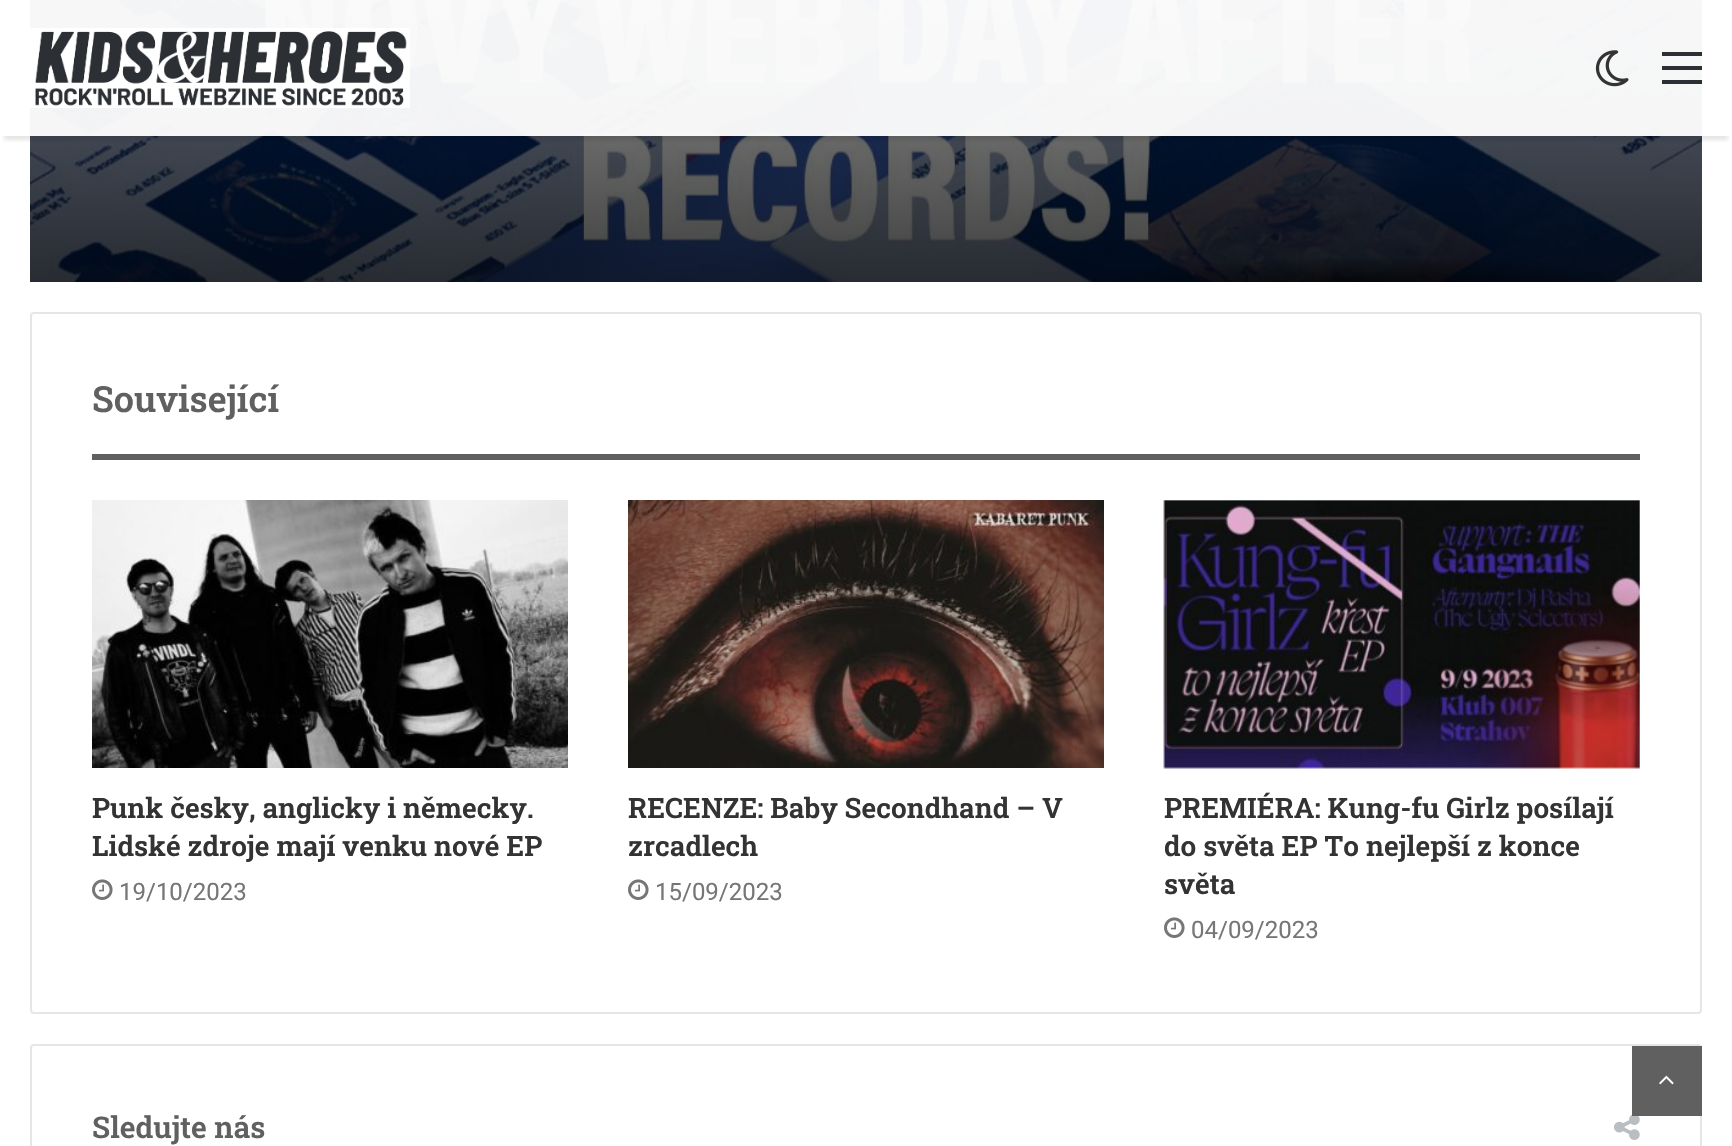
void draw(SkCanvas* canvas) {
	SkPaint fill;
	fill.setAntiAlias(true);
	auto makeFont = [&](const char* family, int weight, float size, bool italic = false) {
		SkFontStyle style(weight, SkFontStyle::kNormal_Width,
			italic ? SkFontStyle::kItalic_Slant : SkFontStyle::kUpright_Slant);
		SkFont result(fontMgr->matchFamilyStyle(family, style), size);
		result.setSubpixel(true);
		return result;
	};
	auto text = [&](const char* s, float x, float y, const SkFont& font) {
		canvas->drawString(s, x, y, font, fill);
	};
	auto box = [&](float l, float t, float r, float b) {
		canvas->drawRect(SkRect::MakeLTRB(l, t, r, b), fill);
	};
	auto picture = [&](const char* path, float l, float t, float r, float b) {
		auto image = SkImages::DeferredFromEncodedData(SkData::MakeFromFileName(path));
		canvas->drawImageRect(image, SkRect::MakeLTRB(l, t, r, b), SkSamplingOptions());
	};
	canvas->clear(0xFFFFFFFF);
	picture("image2.png", 30, 0, 1702, 282);
	{
		const SkColor colors[] = {0x00000000, 0xBF000000};
		const float stops[] = {0, 1};
		const SkPoint ends[] = {{866, -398}, {866, 282}};
		fill.setShader(SkGradientShader::MakeLinear(ends, colors, stops, 2, SkTileMode::kClamp));
		fill.setAlpha(255);
	}
	box(30, 0, 1702, 282);
	canvas->save();
	canvas->clipRect(SkRect::MakeLTRB(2, 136, 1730, 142));
	fill.setShader(nullptr);
	fill.setColor(0x1A000000);
	fill.setMaskFilter(SkMaskFilter::MakeBlur(kNormal_SkBlurStyle, 2));
	canvas->drawRect(SkRect::MakeLTRB(4, 12, 1728, 140), fill);
	fill.setMaskFilter(nullptr);
	canvas->restore();
	fill.setColor(0xF2FFFFFF);
	box(30, 0, 1702, 136);
	picture("image0.png", 30, 28, 410, 108);
	picture("image1.png", 1595, 50, 1629, 87);
	fill.setColor(0xFF2C2F34);
	box(1662, 66, 1702, 70);
	box(1662, 52, 1702, 56);
	box(1662, 80, 1702, 84);
	{
		const SkColor colors[] = {0xCC000000, 0x00000000, 0x00E5E5E5};
		const float stops[] = {0, 0.65f, 1};
		SkMatrix m = SkMatrix::Translate(1368, 292).preScale(472, 57);
		fill.setShader(SkGradientShader::MakeRadial({0, 0}, 1, colors, stops, 3, SkTileMode::kClamp, 0, &m));
		fill.setAlpha(255);
	}
	box(1115, 259, 1641, 282);
	fill.setStyle(SkPaint::kStroke_Style);
	fill.setStrokeWidth(2);
	fill.setShader(nullptr);
	fill.setColor(0xFFE6E6E6);
	canvas->drawRoundRect(SkRect::MakeLTRB(31, 313, 1701, 1013), 3, 3, fill);
	fill.setStyle(SkPaint::kFill_Style);
	fill.setColor(0xFF606060);
	box(92, 454, 1640, 460);
	picture("image3.png", 92, 500, 568, 768);
	picture("image4.png", 92, 879, 113, 900);
	picture("image5.png", 628, 500, 1104, 768);
	picture("image4.png", 628, 879, 649, 900);
	picture("image6.png", 1163, 500, 1640, 769);
	picture("image4.png", 1164, 917, 1185, 938);
	fill.setStyle(SkPaint::kStroke_Style);
	fill.setColor(0xFFE6E6E6);
	canvas->drawRoundRect(SkRect::MakeLTRB(31, 1045, 1701, 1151), 3, 3, fill);
	picture("image7.png", 1614, 1114, 1640, 1140);
	fill.setStyle(SkPaint::kFill_Style);
	fill.setColor(0xFF606060);
	box(1632, 1046, 1702, 1116);
	picture("image8.png", 1659, 1075, 1674, 1085);
	auto font1 = makeFont("Roboto Slab", 600, 36);
	text("Související", 92, 412, font1);
	auto font2 = makeFont("Roboto Slab", 600, 28);
	fill.setColor(0xFF333333);
	text("Punk česky, anglicky i německy.", 92, 818, font2);
	text("Lidské zdroje mají venku nové EP", 92, 856, font2);
	auto font3 = makeFont("Roboto", 400, 24);
	fill.setColor(0xFF767676);
	text("19/10/2023", 119, 900, font3);
	fill.setColor(0xFF333333);
	text("RECENZE: Baby Secondhand – V", 628, 818, font2);
	text("zrcadlech", 628, 856, font2);
	fill.setColor(0xFF767676);
	text("15/09/2023", 655, 900, font3);
	fill.setColor(0xFF333333);
	text("PREMIÉRA: Kung-fu Girlz posílají", 1164, 818, font2);
	text("do světa EP To nejlepší z konce", 1164, 856, font2);
	text("světa", 1164, 894, font2);
	fill.setColor(0xFF767676);
	text("04/09/2023", 1191, 938, font3);
	auto font4 = makeFont("Roboto Slab", 600, 30);
	fill.setColor(0xFF606060);
	text("Sledujte nás", 92, 1138, font4);
}
